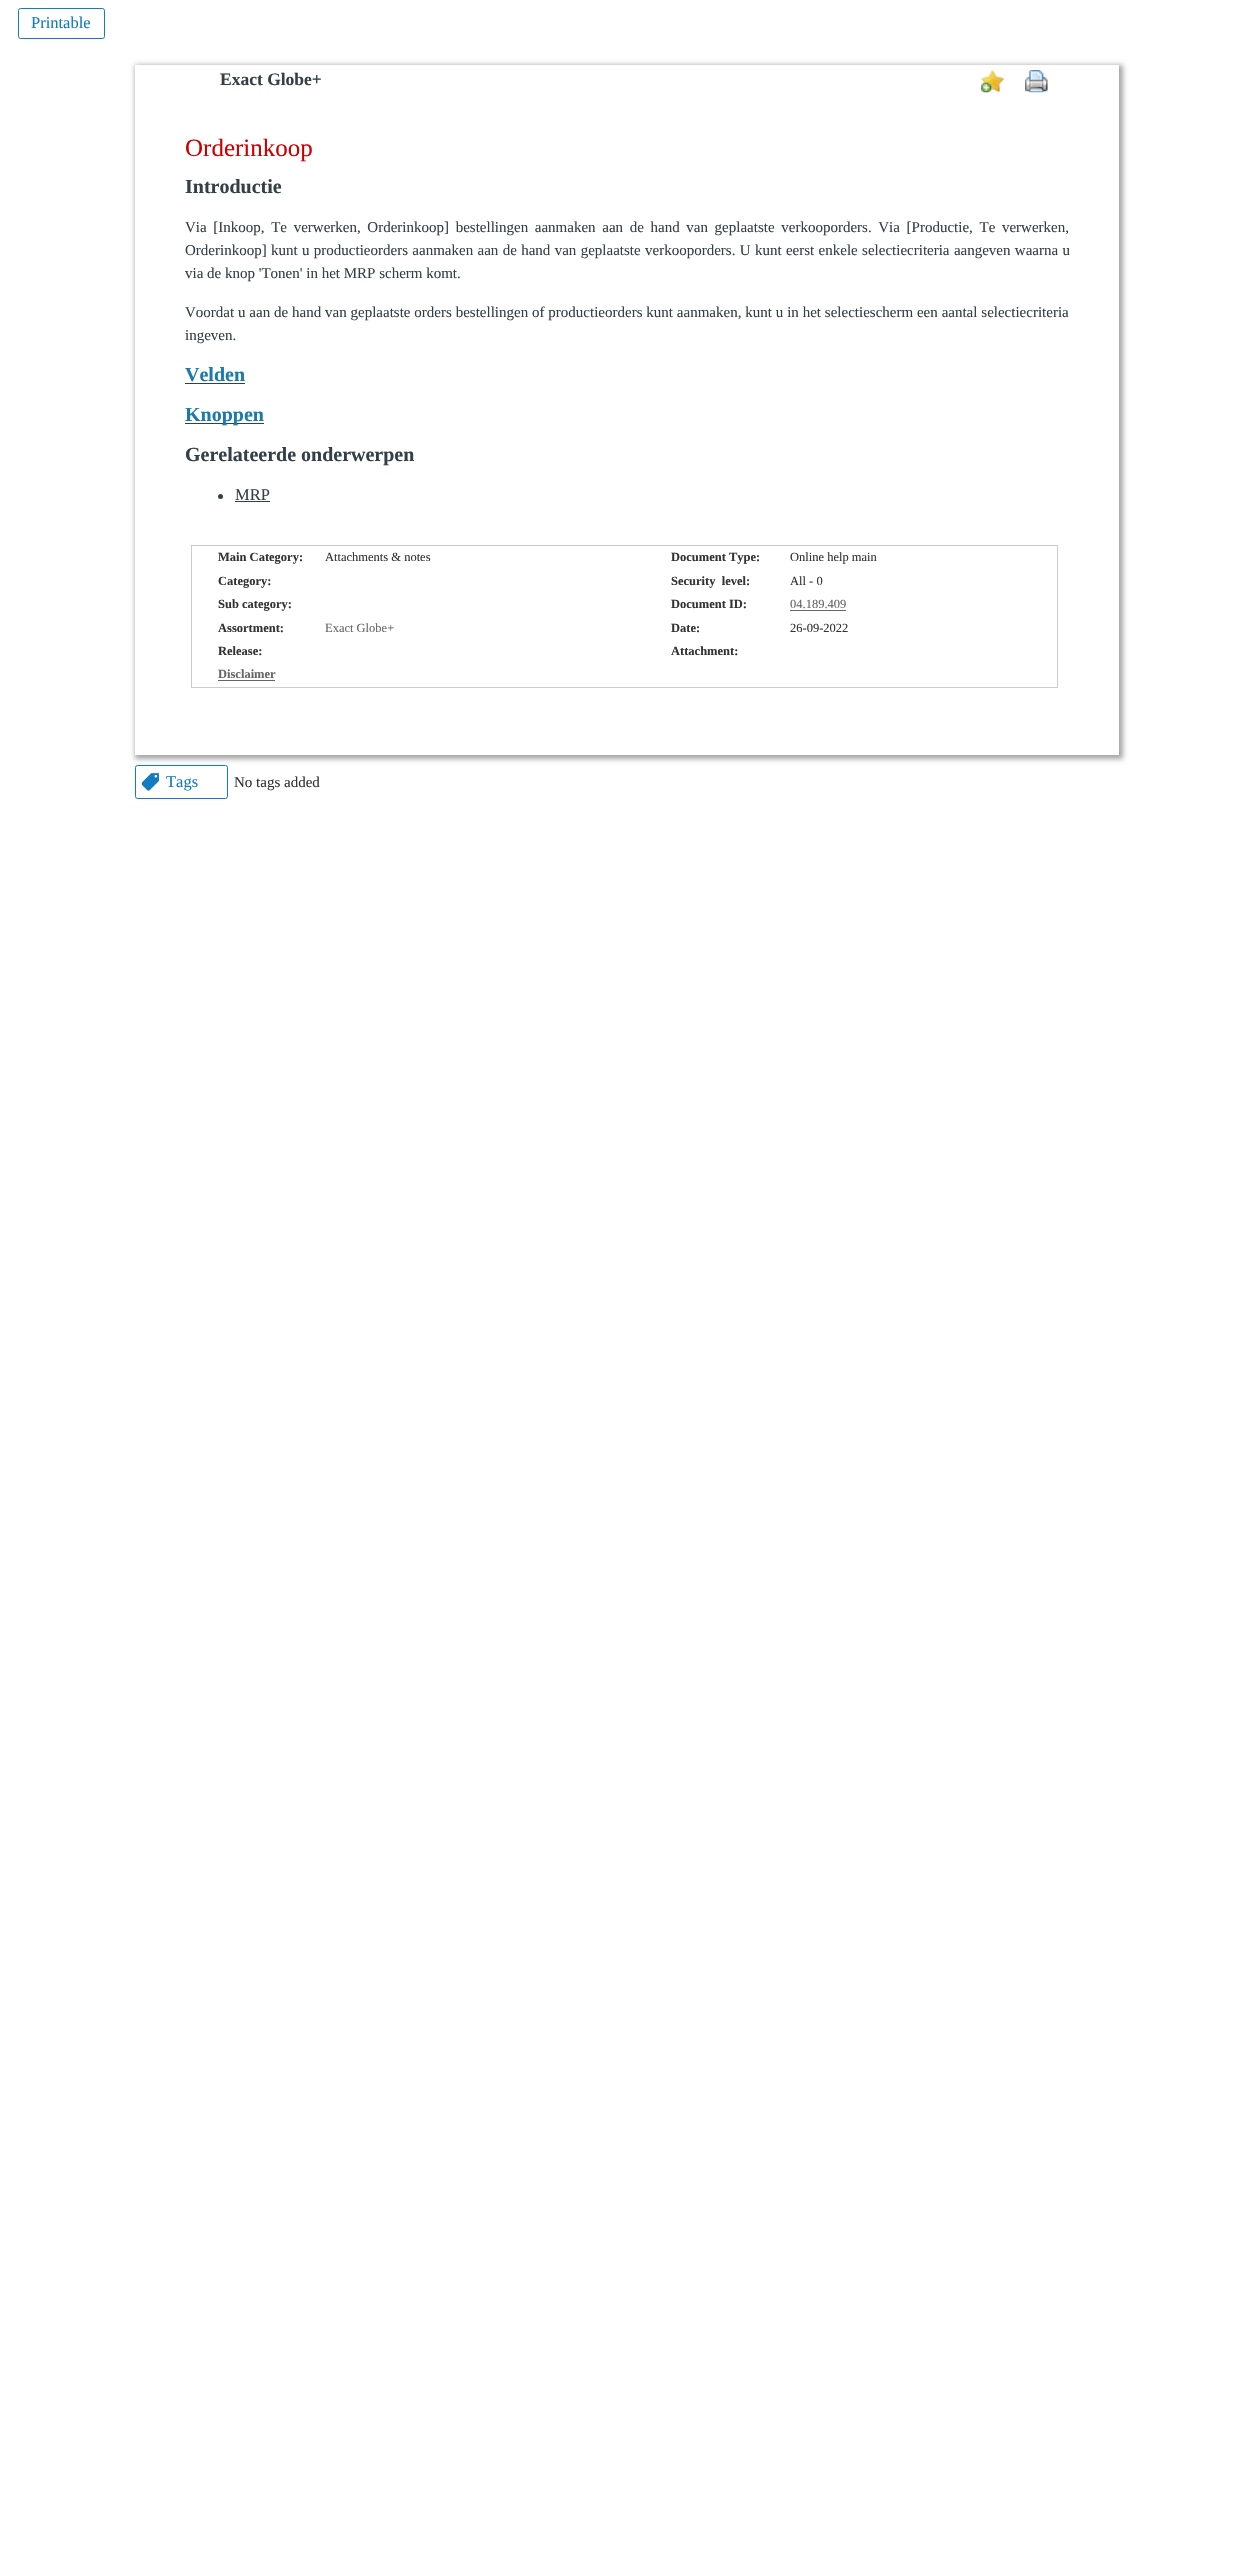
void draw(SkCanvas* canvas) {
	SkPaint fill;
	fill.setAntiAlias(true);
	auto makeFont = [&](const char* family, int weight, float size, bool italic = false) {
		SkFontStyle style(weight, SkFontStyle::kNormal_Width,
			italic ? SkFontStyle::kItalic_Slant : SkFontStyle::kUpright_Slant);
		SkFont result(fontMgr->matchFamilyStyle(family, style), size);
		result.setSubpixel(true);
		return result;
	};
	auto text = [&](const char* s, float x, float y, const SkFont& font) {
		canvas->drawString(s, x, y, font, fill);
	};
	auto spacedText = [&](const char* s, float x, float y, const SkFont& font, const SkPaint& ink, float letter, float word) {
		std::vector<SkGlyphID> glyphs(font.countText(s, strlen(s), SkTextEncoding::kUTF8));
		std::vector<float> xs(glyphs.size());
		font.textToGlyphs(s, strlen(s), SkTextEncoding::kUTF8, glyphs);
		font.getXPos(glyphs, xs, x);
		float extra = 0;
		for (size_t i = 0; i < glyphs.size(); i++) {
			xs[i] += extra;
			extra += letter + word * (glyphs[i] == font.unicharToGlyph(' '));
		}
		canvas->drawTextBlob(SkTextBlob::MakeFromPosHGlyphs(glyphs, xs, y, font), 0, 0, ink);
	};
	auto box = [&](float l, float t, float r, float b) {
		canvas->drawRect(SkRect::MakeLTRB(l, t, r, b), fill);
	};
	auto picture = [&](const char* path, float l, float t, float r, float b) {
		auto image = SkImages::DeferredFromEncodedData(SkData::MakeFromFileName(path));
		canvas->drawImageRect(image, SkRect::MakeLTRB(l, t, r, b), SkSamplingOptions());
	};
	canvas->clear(0xFFFFFFFF);
	fill.setStyle(SkPaint::kStroke_Style);
	fill.setStrokeWidth(1);
	fill.setColor(0xFF137BC0);
	canvas->drawRoundRect(SkRect::MakeLTRB(18.5f, 8.5f, 104.5f, 38.5f), 2, 2, fill);
	canvas->save();
	canvas->clipPath(SkPathBuilder(SkPathFillType::kEvenOdd).moveTo(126, 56).lineTo(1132, 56).lineTo(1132, 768).lineTo(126, 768).close().moveTo(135, 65).lineTo(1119, 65).lineTo(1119, 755).lineTo(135, 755).close().detach(), true);
	fill.setStyle(SkPaint::kFill_Style);
	fill.setColor(0x59000000);
	fill.setMaskFilter(SkMaskFilter::MakeBlur(kNormal_SkBlurStyle, 2.5f));
	canvas->drawRect(SkRect::MakeLTRB(135, 65, 1123, 759), fill);
	fill.setMaskFilter(nullptr);
	canvas->restore();
	picture("image0.png", 981, 70, 1004, 93);
	picture("image1.png", 1025, 70, 1048, 93);
	fill.setColor(0xFF344047);
	box(185, 383, 245, 384);
	box(185, 423, 264, 424);
	canvas->drawCircle(220.5f, 496.5f, 2.5f, fill);
	box(235, 501, 270, 502);
	fill.setStyle(SkPaint::kStroke_Style);
	fill.setColor(0xFFCCCCCC);
	canvas->drawRect(SkRect::MakeLTRB(191.5f, 545.5f, 1057.5f, 687.5f), fill);
	fill.setStyle(SkPaint::kFill_Style);
	fill.setColor(0xFF666666);
	box(790, 610, 846, 611);
	box(218, 680, 275, 681);
	fill.setStyle(SkPaint::kStroke_Style);
	fill.setColor(0xFF137BC0);
	canvas->drawRoundRect(SkRect::MakeLTRB(135.5f, 765.5f, 227.5f, 798.5f), 2, 2, fill);
	picture("image2.png", 141, 773, 159, 791);
	auto font1 = makeFont("Liberation Serif", 400, 16.5f);
	fill.setStyle(SkPaint::kFill_Style);
	text("Printable", 31, 28, font1);
	auto font2 = makeFont("Liberation Serif", 700, 17.5f);
	fill.setColor(0xFF344047);
	text("Exact Globe+", 220, 85, font2);
	auto font3 = makeFont("Liberation Serif", 400, 25);
	fill.setColor(0xFFCC0000);
	text("Orderinkoop", 185, 156, font3);
	auto font4 = makeFont("Liberation Serif", 700, 20);
	fill.setColor(0xFF344047);
	text("Introductie", 185, 193, font4);
	auto font5 = makeFont("Liberation Serif", 400, 15);
	spacedText("Via [Inkoop, Te verwerken, Orderinkoop] bestellingen aanmaken aan de hand van geplaatste verkooporders. Via [Productie, Te verwerken,", 185, 232, font5, fill, 0, 2.9f);
	spacedText("Orderinkoop] kunt u productieorders aanmaken aan de hand van geplaatste verkooporders. U kunt eerst enkele selectiecriteria aangeven waarna u", 185, 255, font5, fill, 0, 0.6f);
	text("via de knop 'Tonen' in het MRP scherm komt.", 185, 278, font5);
	spacedText("Voordat u aan de hand van geplaatste orders bestellingen of productieorders kunt aanmaken, kunt u in het selectiescherm een aantal selectiecriteria", 185, 317, font5, fill, 0, 0.1f);
	text("ingeven.", 185, 340, font5);
	fill.setColor(0xFF1A7AAD);
	text("Velden", 185, 381, font4);
	text("Knoppen", 185, 421, font4);
	fill.setColor(0xFF344047);
	text("Gerelateerde onderwerpen", 185, 461, font4);
	text("MRP", 235, 500, font1);
	auto font6 = makeFont("Liberation Serif", 700, 12.5f);
	fill.setColor(0xFF333333);
	text("Main Category:", 218, 561, font6);
	auto font7 = makeFont("Liberation Serif", 400, 12.5f);
	text("Attachments & notes", 325, 561, font7);
	text("Document Type:", 671, 561, font6);
	text("Online help main", 790, 561, font7);
	text("Category:", 218, 585, font6);
	text("Security  level:", 671, 585, font6);
	text("All - 0", 790, 585, font7);
	text("Sub category:", 218, 608, font6);
	text("Document ID:", 671, 608, font6);
	fill.setColor(0xFF666666);
	text("04.189.409", 790, 608, font7);
	fill.setColor(0xFF333333);
	text("Assortment:", 218, 632, font6);
	fill.setColor(0xFF666666);
	text("Exact Globe+", 325, 632, font7);
	fill.setColor(0xFF333333);
	text("Date:", 671, 632, font6);
	text("26-09-2022", 790, 632, font7);
	text("Release:", 218, 655, font6);
	text("Attachment:", 671, 655, font6);
	fill.setColor(0xFF666666);
	text("Disclaimer", 218, 678, font6);
	fill.setColor(0xFF137BC0);
	text("Tags", 166, 787, font1);
	fill.setColor(0xFF333333);
	text("No tags added", 234, 787, font5);
}
